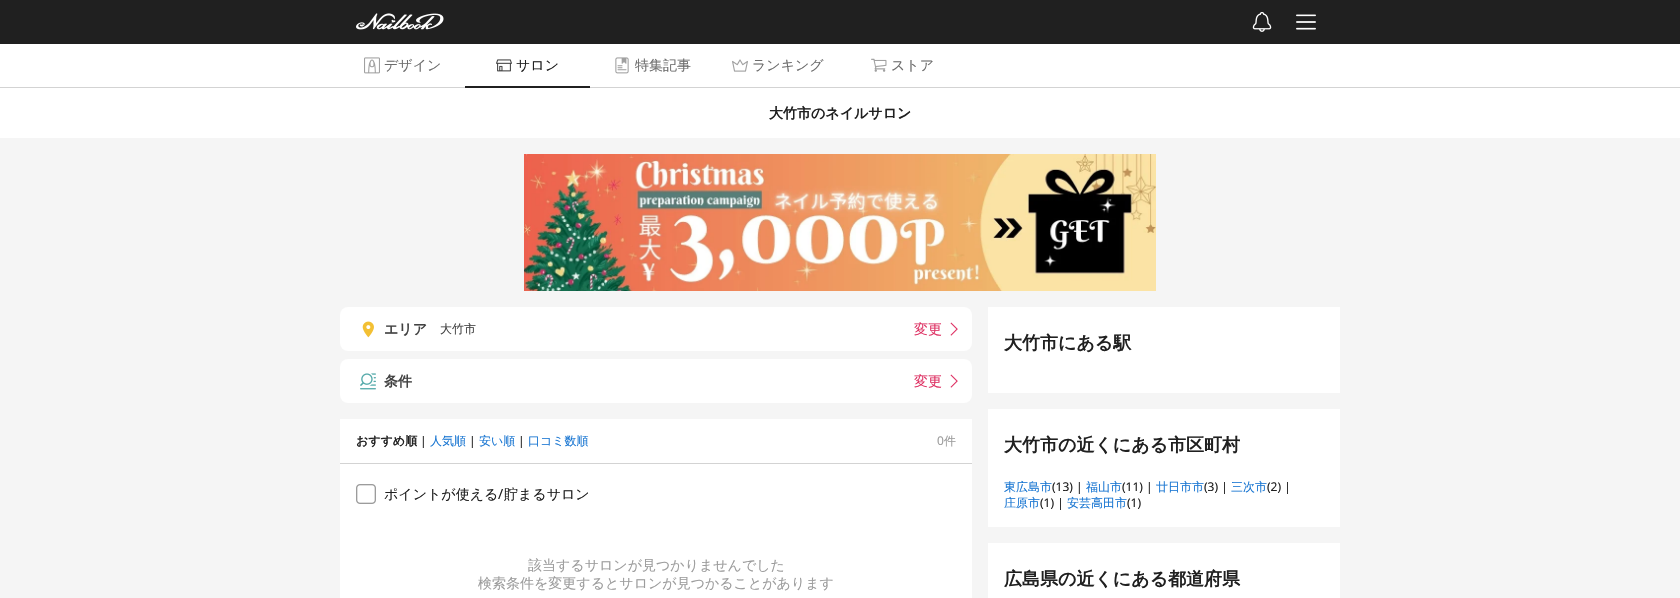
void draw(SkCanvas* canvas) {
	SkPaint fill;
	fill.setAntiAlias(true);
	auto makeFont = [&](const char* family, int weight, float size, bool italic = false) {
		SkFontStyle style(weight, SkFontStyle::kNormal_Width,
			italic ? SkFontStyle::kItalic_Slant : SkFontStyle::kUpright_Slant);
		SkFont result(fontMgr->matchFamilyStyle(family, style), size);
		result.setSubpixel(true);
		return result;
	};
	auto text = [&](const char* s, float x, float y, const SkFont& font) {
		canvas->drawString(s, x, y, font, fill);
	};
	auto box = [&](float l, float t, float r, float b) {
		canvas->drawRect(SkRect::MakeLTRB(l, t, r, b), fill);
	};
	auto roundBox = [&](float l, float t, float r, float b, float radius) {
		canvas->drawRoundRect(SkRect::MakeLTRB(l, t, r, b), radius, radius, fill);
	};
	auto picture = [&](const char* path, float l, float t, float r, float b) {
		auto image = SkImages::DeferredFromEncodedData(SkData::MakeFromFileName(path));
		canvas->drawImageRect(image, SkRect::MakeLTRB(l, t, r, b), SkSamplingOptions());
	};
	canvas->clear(0xFFF5F5F5);
	fill.setColor(0xFF202020);
	box(0, 0, 1680, 44);
	picture("image0.png", 356, 13, 444, 30);
	picture("image1.png", 1252, 12, 1272, 32);
	picture("image2.png", 1296, 14, 1316, 30);
	fill.setColor(0xFFFFFFFF);
	box(0, 44, 1680, 87);
	picture("image3.png", 364, 57, 380, 74);
	picture("image4.png", 496, 59, 512, 72);
	fill.setColor(0xFFD3D3D3);
	box(0, 87, 1680, 88);
	fill.setColor(0xFF202020);
	box(465, 86, 590, 88);
	picture("image5.png", 615, 57, 629, 74);
	picture("image6.png", 732, 59, 748, 72);
	picture("image7.png", 871, 58, 887, 72);
	fill.setColor(0xFFFFFFFF);
	box(0, 88, 1680, 138);
	picture("image8.png", 524, 154, 1156, 291);
	roundBox(340, 307, 972, 351, 8);
	picture("image9.png", 362, 321, 374, 338);
	picture("image10.png", 950, 322, 958, 336);
	roundBox(340, 359, 972, 403, 8);
	picture("image11.png", 360, 373, 376, 390);
	picture("image10.png", 950, 374, 958, 388);
	box(340, 419, 972, 463);
	fill.setColor(0xFFD3D3D3);
	box(340, 463, 972, 464);
	fill.setColor(0xFFFFFFFF);
	box(340, 464, 972, 598);
	picture("image12.png", 356, 484, 376, 504);
	box(988, 307, 1340, 393);
	box(988, 409, 1340, 527);
	box(988, 543, 1340, 598);
	auto font1 = makeFont("WenQuanYi Zen Hei", 500, 14);
	fill.setColor(0xFF6D6D6D);
	text("デザイン", 384, 70, font1);
	fill.setColor(0xFF202020);
	text("サロン", 516, 70, font1);
	fill.setColor(0xFF6D6D6D);
	text("特集記事", 635, 70, font1);
	text("ランキング", 752, 70, font1);
	text("ストア", 891, 70, font1);
	auto font2 = makeFont("WenQuanYi Zen Hei", 700, 14);
	fill.setColor(0xFF202020);
	text("大竹市のネイルサロン", 769, 118, font2);
	fill.setColor(0xFF424242);
	text("エリア", 384, 334, font2);
	auto font3 = makeFont("WenQuanYi Zen Hei", 500, 12);
	text("大竹市", 440, 333, font3);
	fill.setColor(0xFFDE3163);
	text("変更", 914, 334, font1);
	fill.setColor(0xFF424242);
	text("条件", 384, 386, font2);
	fill.setColor(0xFFDE3163);
	text("変更", 914, 386, font1);
	auto font4 = makeFont("WenQuanYi Zen Hei", 700, 12);
	fill.setColor(0xFF202020);
	text("おすすめ順", 356, 445, font4);
	auto font5 = makeFont("Noto Sans", 400, 12);
	text("|", 420, 445, font5);
	fill.setColor(0xFF1976D2);
	text("人気順", 430, 445, font3);
	fill.setColor(0xFF202020);
	text("|", 469, 445, font5);
	fill.setColor(0xFF1976D2);
	text("安い順", 479, 445, font3);
	fill.setColor(0xFF202020);
	text("|", 518, 445, font5);
	fill.setColor(0xFF1976D2);
	text("口コミ数順", 528, 445, font3);
	fill.setColor(0xFF9C9C9C);
	text("0", 937, 445, font5);
	text("件", 944, 445, font3);
	fill.setColor(0xFF202020);
	text("ポイントが使える", 384, 499, font1);
	auto font6 = makeFont("Noto Sans", 400, 14);
	text("/", 498, 499, font6);
	text("貯まるサロン", 504, 499, font1);
	fill.setColor(0xFF9C9C9C);
	text("該当するサロンが見つかりませんでした", 528, 570, font1);
	text("検索条件を変更するとサロンが見つかることがあります", 478, 588, font1);
	auto font7 = makeFont("WenQuanYi Zen Hei", 700, 18);
	fill.setColor(0xFF202020);
	text("大竹市にある駅", 1004, 349, font7);
	text("大竹市の近くにある市区町村", 1004, 451, font7);
	fill.setColor(0xFF1976D2);
	text("東広島市", 1004, 491, font3);
	fill.setColor(0xFF202020);
	text("(13) |", 1052, 491, font5);
	fill.setColor(0xFF1976D2);
	text("福山市", 1086, 491, font3);
	fill.setColor(0xFF202020);
	text("(11) |", 1122, 491, font5);
	fill.setColor(0xFF1976D2);
	text("廿日市市", 1156, 491, font3);
	fill.setColor(0xFF202020);
	text("(3) |", 1204, 491, font5);
	fill.setColor(0xFF1976D2);
	text("三次市", 1231, 491, font3);
	fill.setColor(0xFF202020);
	text("(2) |", 1267, 491, font5);
	fill.setColor(0xFF1976D2);
	text("庄原市", 1004, 507, font3);
	fill.setColor(0xFF202020);
	text("(1) |", 1040, 507, font5);
	fill.setColor(0xFF1976D2);
	text("安芸高田市", 1067, 507, font3);
	fill.setColor(0xFF202020);
	text("(1)", 1127, 507, font5);
	text("広島県の近くにある都道府県", 1004, 585, font7);
}
